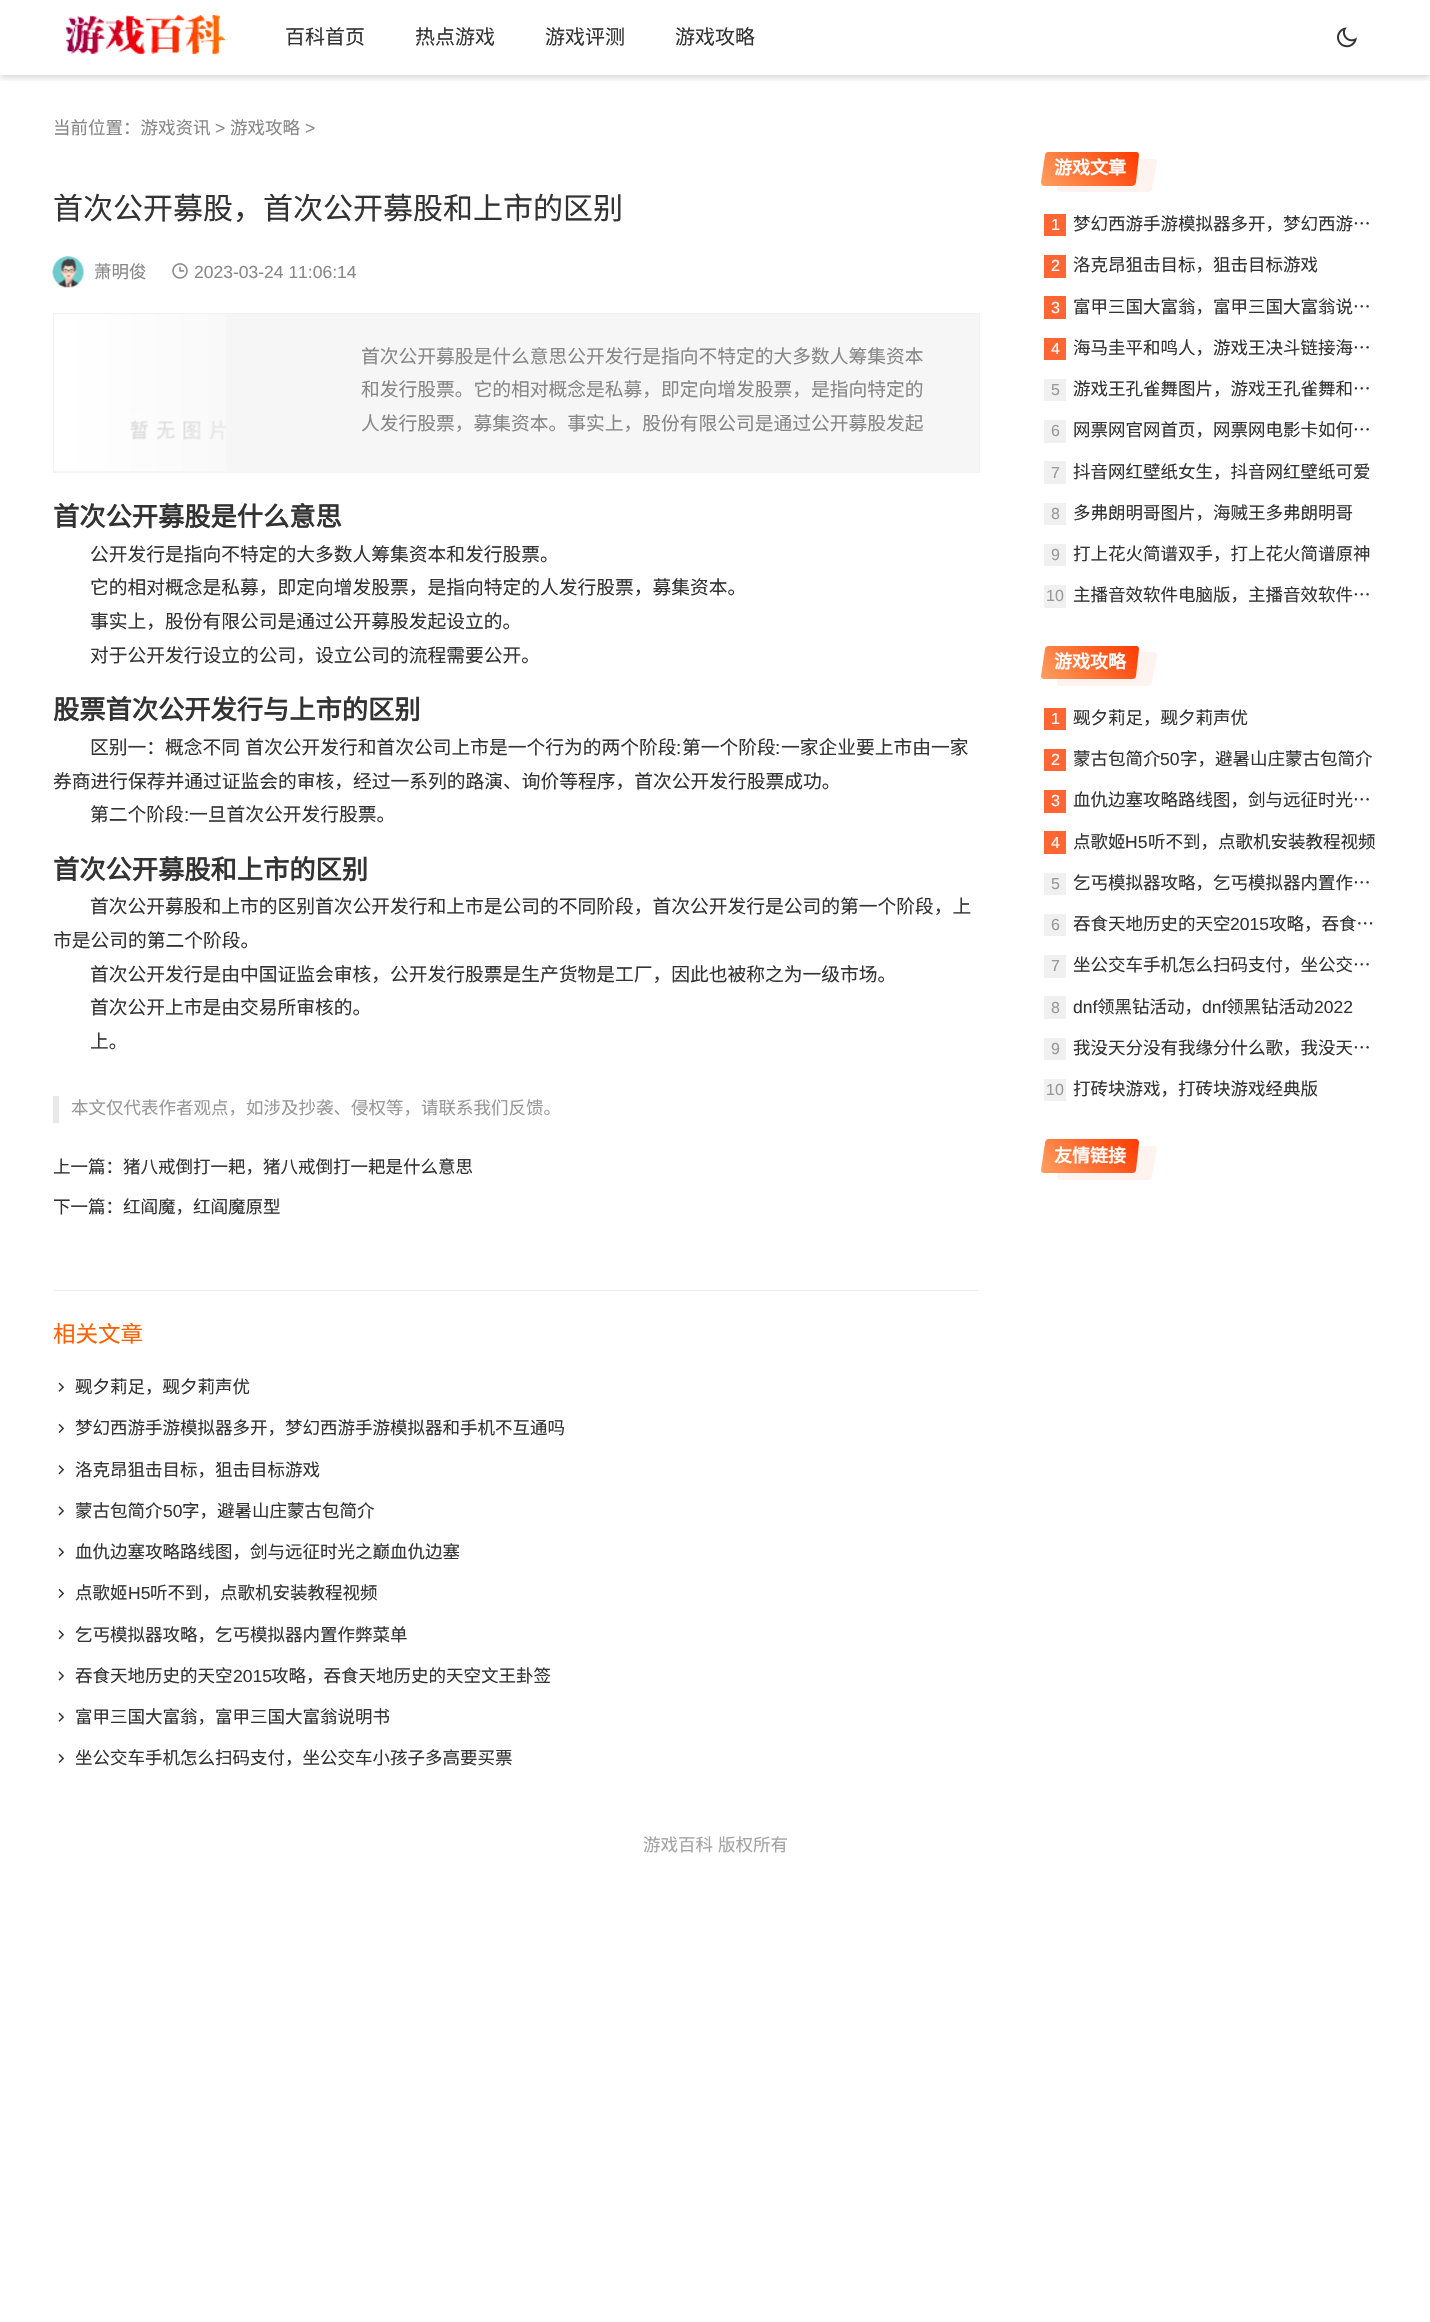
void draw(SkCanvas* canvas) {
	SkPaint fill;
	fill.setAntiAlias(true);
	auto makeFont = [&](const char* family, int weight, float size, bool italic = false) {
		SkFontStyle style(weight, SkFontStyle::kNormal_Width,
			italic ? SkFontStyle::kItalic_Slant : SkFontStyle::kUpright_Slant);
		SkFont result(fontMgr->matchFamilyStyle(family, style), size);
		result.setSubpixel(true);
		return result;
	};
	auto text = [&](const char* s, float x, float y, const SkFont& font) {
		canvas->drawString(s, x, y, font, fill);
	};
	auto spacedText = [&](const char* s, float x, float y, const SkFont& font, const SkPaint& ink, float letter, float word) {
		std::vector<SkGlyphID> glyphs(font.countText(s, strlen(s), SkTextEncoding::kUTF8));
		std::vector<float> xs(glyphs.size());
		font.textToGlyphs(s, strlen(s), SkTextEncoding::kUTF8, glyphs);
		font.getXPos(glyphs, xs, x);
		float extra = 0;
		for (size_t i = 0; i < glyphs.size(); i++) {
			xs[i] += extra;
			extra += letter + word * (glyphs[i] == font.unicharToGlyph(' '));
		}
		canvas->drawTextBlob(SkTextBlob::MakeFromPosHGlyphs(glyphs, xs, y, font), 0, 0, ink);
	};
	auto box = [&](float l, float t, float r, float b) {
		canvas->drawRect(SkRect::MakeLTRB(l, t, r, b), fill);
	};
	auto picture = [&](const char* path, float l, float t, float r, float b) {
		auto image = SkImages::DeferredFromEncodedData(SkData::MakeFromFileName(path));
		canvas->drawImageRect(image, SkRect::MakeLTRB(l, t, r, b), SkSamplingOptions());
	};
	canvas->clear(0xFFFFFFFF);
	canvas->save();
	canvas->clipRect(SkRect::MakeLTRB(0, 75, 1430, 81));
	fill.setColor(0x26000000);
	fill.setMaskFilter(SkMaskFilter::MakeBlur(kNormal_SkBlurStyle, 3));
	canvas->drawRect(SkRect::MakeLTRB(0, 3, 1430, 78), fill);
	fill.setMaskFilter(nullptr);
	canvas->restore();
	picture("image0.png", 65, 14, 226, 56);
	picture("image1.png", 1337, 27, 1357, 48);
	picture("image2.png", 52, 256, 84, 288);
	picture("image3.png", 172, 263, 188, 279);
	fill.setColor(0xFFF6F6F6);
	canvas->drawRect(SkRect::MakeLTRB(53.5f, 313.5f, 979.5f, 472.5f), fill);
	fill.setStyle(SkPaint::kStroke_Style);
	fill.setStrokeWidth(1);
	fill.setColor(0xFFF3F3F3);
	canvas->drawRect(SkRect::MakeLTRB(53.5f, 313.5f, 979.5f, 472.5f), fill);
	picture("image4.png", 54, 314, 226, 471);
	fill.setStyle(SkPaint::kFill_Style);
	fill.setColor(0xFFE9E9E9);
	box(53, 1096, 59, 1123);
	fill.setColor(0xFFEEEEEE);
	box(54, 1290, 979, 1291);
	picture("image5.png", 58, 1382, 65, 1392);
	picture("image6.png", 58, 1423, 65, 1433);
	picture("image7.png", 58, 1465, 65, 1475);
	picture("image8.png", 58, 1506, 65, 1516);
	picture("image5.png", 58, 1547, 65, 1557);
	picture("image6.png", 58, 1588, 65, 1598);
	picture("image7.png", 58, 1630, 65, 1640);
	picture("image8.png", 58, 1671, 65, 1681);
	picture("image5.png", 58, 1712, 65, 1722);
	picture("image6.png", 58, 1753, 65, 1763);
	fill.setColor(0xFFFFF3F0);
	canvas->drawPath(SkPathBuilder().moveTo(1066, 159).lineTo(1154, 159).cubicTo(1156, 159, 1157, 160, 1157, 162).lineTo(1152, 189).cubicTo(1152, 191, 1150, 192, 1148, 192).lineTo(1060, 192).cubicTo(1058, 192, 1057, 191, 1057, 189).lineTo(1062, 162).cubicTo(1063, 160, 1064, 159, 1066, 159).close().detach(), fill);
	{
		const SkColor colors[] = {0xFFFFA061, 0xFFFF3900};
		const float stops[] = {0, 1};
		const SkPoint ends[] = {{1054, 201}, {1126, 137}};
		fill.setShader(SkGradientShader::MakeLinear(ends, colors, stops, 2, SkTileMode::kClamp));
		fill.setAlpha(255);
	}
	canvas->drawPath(SkPathBuilder().moveTo(1048, 152).lineTo(1136, 152).cubicTo(1138, 152, 1139, 153, 1139, 155).lineTo(1136, 182).cubicTo(1136, 184, 1134, 186, 1132, 186).lineTo(1044, 186).cubicTo(1042, 186, 1041, 184, 1041, 182).lineTo(1045, 155).cubicTo(1045, 153, 1047, 152, 1048, 152).close().detach(), fill);
	fill.setShader(nullptr);
	fill.setColor(0xFFFF6633);
	box(1044, 214, 1066, 236);
	box(1044, 255, 1066, 278);
	box(1044, 296, 1066, 319);
	box(1044, 338, 1066, 360);
	fill.setColor(0xFFF0F0F0);
	box(1044, 379, 1066, 401);
	box(1044, 420, 1066, 443);
	box(1044, 461, 1066, 484);
	box(1044, 503, 1066, 525);
	box(1044, 544, 1066, 566);
	box(1044, 585, 1066, 608);
	fill.setColor(0xFFFFF3F0);
	canvas->drawPath(SkPathBuilder().moveTo(1066, 652).lineTo(1154, 652).cubicTo(1156, 652, 1157, 654, 1157, 656).lineTo(1152, 683).cubicTo(1152, 685, 1150, 686, 1148, 686).lineTo(1060, 686).cubicTo(1058, 686, 1057, 685, 1057, 683).lineTo(1062, 656).cubicTo(1063, 654, 1064, 652, 1066, 652).close().detach(), fill);
	{
		const SkColor colors[] = {0xFFFFA061, 0xFFFF3900};
		const float stops[] = {0, 1};
		const SkPoint ends[] = {{1054, 695}, {1126, 630}};
		fill.setShader(SkGradientShader::MakeLinear(ends, colors, stops, 2, SkTileMode::kClamp));
		fill.setAlpha(255);
	}
	canvas->drawPath(SkPathBuilder().moveTo(1048, 646).lineTo(1136, 646).cubicTo(1138, 646, 1139, 647, 1139, 649).lineTo(1136, 676).cubicTo(1136, 678, 1134, 679, 1132, 679).lineTo(1044, 679).cubicTo(1042, 679, 1041, 678, 1041, 676).lineTo(1045, 649).cubicTo(1045, 647, 1047, 646, 1048, 646).close().detach(), fill);
	fill.setShader(nullptr);
	fill.setColor(0xFFFF6633);
	box(1044, 708, 1066, 730);
	box(1044, 749, 1066, 771);
	box(1044, 790, 1066, 813);
	box(1044, 831, 1066, 854);
	fill.setColor(0xFFF0F0F0);
	box(1044, 873, 1066, 895);
	box(1044, 914, 1066, 936);
	box(1044, 955, 1066, 978);
	box(1044, 996, 1066, 1019);
	box(1044, 1038, 1066, 1060);
	box(1044, 1079, 1066, 1101);
	fill.setColor(0xFFFFF3F0);
	canvas->drawPath(SkPathBuilder().moveTo(1066, 1146).lineTo(1154, 1146).cubicTo(1156, 1146, 1157, 1148, 1157, 1150).lineTo(1152, 1176).cubicTo(1152, 1178, 1150, 1180, 1148, 1180).lineTo(1060, 1180).cubicTo(1058, 1180, 1057, 1178, 1057, 1176).lineTo(1062, 1150).cubicTo(1063, 1148, 1064, 1146, 1066, 1146).close().detach(), fill);
	{
		const SkColor colors[] = {0xFFFFA061, 0xFFFF3900};
		const float stops[] = {0, 1};
		const SkPoint ends[] = {{1054, 1188}, {1126, 1124}};
		fill.setShader(SkGradientShader::MakeLinear(ends, colors, stops, 2, SkTileMode::kClamp));
		fill.setAlpha(255);
	}
	canvas->drawPath(SkPathBuilder().moveTo(1048, 1139).lineTo(1136, 1139).cubicTo(1138, 1139, 1139, 1141, 1139, 1143).lineTo(1136, 1170).cubicTo(1136, 1172, 1134, 1173, 1132, 1173).lineTo(1044, 1173).cubicTo(1042, 1173, 1041, 1172, 1041, 1170).lineTo(1045, 1143).cubicTo(1045, 1141, 1047, 1139, 1048, 1139).close().detach(), fill);
	auto font1 = makeFont("Noto Sans CJK SC", 400, 20);
	fill.setShader(nullptr);
	fill.setColor(0xFF333333);
	text("百科首页", 285, 44, font1);
	text("热点游戏", 415, 44, font1);
	text("游戏评测", 545, 44, font1);
	text("游戏攻略", 675, 44, font1);
	auto font2 = makeFont("Noto Sans CJK SC", 400, 17.5f);
	fill.setColor(0xFF888888);
	text("当前位置：游戏资讯", 53, 134, font2);
	auto font3 = makeFont("Liberation Sans", 400, 17.5f);
	text(">", 215, 134, font3);
	text("游戏攻略", 230, 134, font2);
	text(">", 305, 134, font3);
	auto font4 = makeFont("Noto Sans CJK SC", 400, 30);
	fill.setColor(0xFF333333);
	text("首次公开募股，首次公开募股和上市的区别", 53, 219, font4);
	fill.setColor(0xFF888888);
	text("萧明俊", 94, 278, font2);
	text("2023-03-24 11:06:14", 194, 278, font3);
	auto font5 = makeFont("Noto Sans CJK SC", 400, 18.75f);
	text("首次公开募股是什么意思公开发行是指向不特定的大多数人筹集资本", 361, 363, font5);
	text("和发行股票。它的相对概念是私募，即定向增发股票，是指向特定的", 361, 396, font5);
	text("人发行股票，募集资本。事实上，股份有限公司是通过公开募股发起", 361, 430, font5);
	auto font6 = makeFont("Noto Sans CJK SC", 700, 26.25f);
	fill.setColor(0xFF333333);
	text("首次公开募股是什么意思", 53, 526, font6);
	text("公开发行是指向不特定的大多数人筹集资本和发行股票。", 90, 561, font5);
	text("它的相对概念是私募，即定向增发股票，是指向特定的人发行股票，募集资本。", 90, 594, font5);
	text("事实上，股份有限公司是通过公开募股发起设立的。", 90, 628, font5);
	text("对于公开发行设立的公司，设立公司的流程需要公开。", 90, 662, font5);
	text("股票首次公开发行与上市的区别", 53, 719, font6);
	spacedText("区别一：概念不同 首次公开发行和首次公司上市是一个行为的两个阶段", 90, 754, font5, fill, 0, 1);
	auto font7 = makeFont("Liberation Sans", 400, 18.75f);
	text(":", 676, 754, font7);
	text("第一个阶段", 682, 754, font5);
	text(":", 775, 754, font7);
	text("一家企业要上市由一家", 781, 754, font5);
	text("券商进行保荐并通过证监会的审核，经过一系列的路演、询价等程序，首次公开发行股票成功。", 53, 788, font5);
	text("第二个阶段", 90, 821, font5);
	text(":", 184, 821, font7);
	text("一旦首次公开发行股票。", 189, 821, font5);
	text("首次公开募股和上市的区别", 53, 879, font6);
	text("首次公开募股和上市的区别首次公开发行和上市是公司的不同阶段，首次公开发行是公司的第一个阶段，上", 90, 913, font5);
	text("市是公司的第二个阶段。", 53, 947, font5);
	text("首次公开发行是由中国证监会审核，公开发行股票是生产货物是工厂，因此也被称之为一级市场。", 90, 981, font5);
	text("首次公开上市是由交易所审核的。", 90, 1014, font5);
	text("上。", 90, 1048, font5);
	fill.setColor(0xFF999999);
	text("本文仅代表作者观点，如涉及抄袭、侵权等，请联系我们反馈。", 71, 1114, font2);
	fill.setColor(0xFF333333);
	text("上一篇：猪八戒倒打一耙，猪八戒倒打一耙是什么意思", 53, 1173, font2);
	text("下一篇：红阎魔，红阎魔原型", 53, 1213, font2);
	auto font8 = makeFont("Noto Sans CJK SC", 400, 22.5f);
	fill.setColor(0xFFFF6000);
	text("相关文章", 53, 1342, font8);
	fill.setColor(0xFF333333);
	text("觋夕莉足，觋夕莉声优", 75, 1393, font2);
	text("梦幻西游手游模拟器多开，梦幻西游手游模拟器和手机不互通吗", 75, 1434, font2);
	text("洛克昂狙击目标，狙击目标游戏", 75, 1476, font2);
	text("蒙古包简介", 75, 1517, font2);
	text("50", 163, 1517, font3);
	text("字，避暑山庄蒙古包简介", 182, 1517, font2);
	text("血仇边塞攻略路线图，剑与远征时光之巅血仇边塞", 75, 1558, font2);
	text("点歌姬", 75, 1599, font2);
	text("H5", 128, 1599, font3);
	text("听不到，点歌机安装教程视频", 150, 1599, font2);
	text("乞丐模拟器攻略，乞丐模拟器内置作弊菜单", 75, 1641, font2);
	text("吞食天地历史的天空", 75, 1682, font2);
	text("2015", 233, 1682, font3);
	text("攻略，吞食天地历史的天空文王卦签", 271, 1682, font2);
	text("富甲三国大富翁，富甲三国大富翁说明书", 75, 1723, font2);
	text("坐公交车手机怎么扫码支付，坐公交车小孩子多高要买票", 75, 1764, font2);
	auto font9 = makeFont("Noto Sans CJK SC", 700, 18);
	fill.setColor(0xFFFFFFFF);
	text("游戏文章", 1054, 174, font9);
	auto font10 = makeFont("Liberation Sans", 400, 16);
	text("1", 1051, 230, font10);
	fill.setColor(0xFF333333);
	text("梦幻西游手游模拟器多开，梦幻西游…", 1073, 230, font2);
	fill.setColor(0xFFFFFFFF);
	text("2", 1051, 271, font10);
	fill.setColor(0xFF333333);
	text("洛克昂狙击目标，狙击目标游戏", 1073, 271, font2);
	fill.setColor(0xFFFFFFFF);
	text("3", 1051, 313, font10);
	fill.setColor(0xFF333333);
	text("富甲三国大富翁，富甲三国大富翁说…", 1073, 313, font2);
	fill.setColor(0xFFFFFFFF);
	text("4", 1051, 354, font10);
	fill.setColor(0xFF333333);
	text("海马圭平和鸣人，游戏王决斗链接海…", 1073, 354, font2);
	fill.setColor(0xFF999999);
	text("5", 1051, 395, font10);
	fill.setColor(0xFF333333);
	text("游戏王孔雀舞图片，游戏王孔雀舞和…", 1073, 395, font2);
	fill.setColor(0xFF999999);
	text("6", 1051, 436, font10);
	fill.setColor(0xFF333333);
	text("网票网官网首页，网票网电影卡如何…", 1073, 436, font2);
	fill.setColor(0xFF999999);
	text("7", 1051, 478, font10);
	fill.setColor(0xFF333333);
	text("抖音网红壁纸女生，抖音网红壁纸可爱", 1073, 478, font2);
	fill.setColor(0xFF999999);
	text("8", 1051, 519, font10);
	fill.setColor(0xFF333333);
	text("多弗朗明哥图片，海贼王多弗朗明哥", 1073, 519, font2);
	fill.setColor(0xFF999999);
	text("9", 1051, 560, font10);
	fill.setColor(0xFF333333);
	text("打上花火简谱双手，打上花火简谱原神", 1073, 560, font2);
	fill.setColor(0xFF999999);
	text("10", 1046, 601, font10);
	fill.setColor(0xFF333333);
	text("主播音效软件电脑版，主播音效软件…", 1073, 601, font2);
	fill.setColor(0xFFFFFFFF);
	text("游戏攻略", 1054, 668, font9);
	text("1", 1051, 724, font10);
	fill.setColor(0xFF333333);
	text("觋夕莉足，觋夕莉声优", 1073, 724, font2);
	fill.setColor(0xFFFFFFFF);
	text("2", 1051, 765, font10);
	fill.setColor(0xFF333333);
	text("蒙古包简介", 1073, 765, font2);
	text("50", 1160, 765, font3);
	text("字，避暑山庄蒙古包简介", 1180, 765, font2);
	fill.setColor(0xFFFFFFFF);
	text("3", 1051, 806, font10);
	fill.setColor(0xFF333333);
	text("血仇边塞攻略路线图，剑与远征时光…", 1073, 806, font2);
	fill.setColor(0xFFFFFFFF);
	text("4", 1051, 848, font10);
	fill.setColor(0xFF333333);
	text("点歌姬", 1073, 848, font2);
	text("H5", 1125, 848, font3);
	text("听不到，点歌机安装教程视频", 1148, 848, font2);
	fill.setColor(0xFF999999);
	text("5", 1051, 889, font10);
	fill.setColor(0xFF333333);
	text("乞丐模拟器攻略，乞丐模拟器内置作…", 1073, 889, font2);
	fill.setColor(0xFF999999);
	text("6", 1051, 930, font10);
	fill.setColor(0xFF333333);
	text("吞食天地历史的天空", 1073, 930, font2);
	text("2015", 1230, 930, font3);
	text("攻略，吞食…", 1269, 930, font2);
	fill.setColor(0xFF999999);
	text("7", 1051, 971, font10);
	fill.setColor(0xFF333333);
	text("坐公交车手机怎么扫码支付，坐公交…", 1073, 971, font2);
	fill.setColor(0xFF999999);
	text("8", 1051, 1013, font10);
	fill.setColor(0xFF333333);
	text("dnf", 1073, 1013, font3);
	text("领黑钻活动，", 1097, 1013, font2);
	text("dnf", 1202, 1013, font3);
	text("领黑钻活动", 1226, 1013, font2);
	text("2022", 1314, 1013, font3);
	fill.setColor(0xFF999999);
	text("9", 1051, 1054, font10);
	fill.setColor(0xFF333333);
	spacedText("我没天分没有我缘分什么歌，我没天…", 1073, 1054, font2, fill, 0, 1);
	fill.setColor(0xFF999999);
	text("10", 1046, 1095, font10);
	fill.setColor(0xFF333333);
	text("打砖块游戏，打砖块游戏经典版", 1073, 1095, font2);
	fill.setColor(0xFFFFFFFF);
	text("友情链接", 1054, 1162, font9);
	fill.setColor(0xFFA5A4A4);
	spacedText("游戏百科 版权所有", 643, 1851, font2, fill, 0, 1);
}
